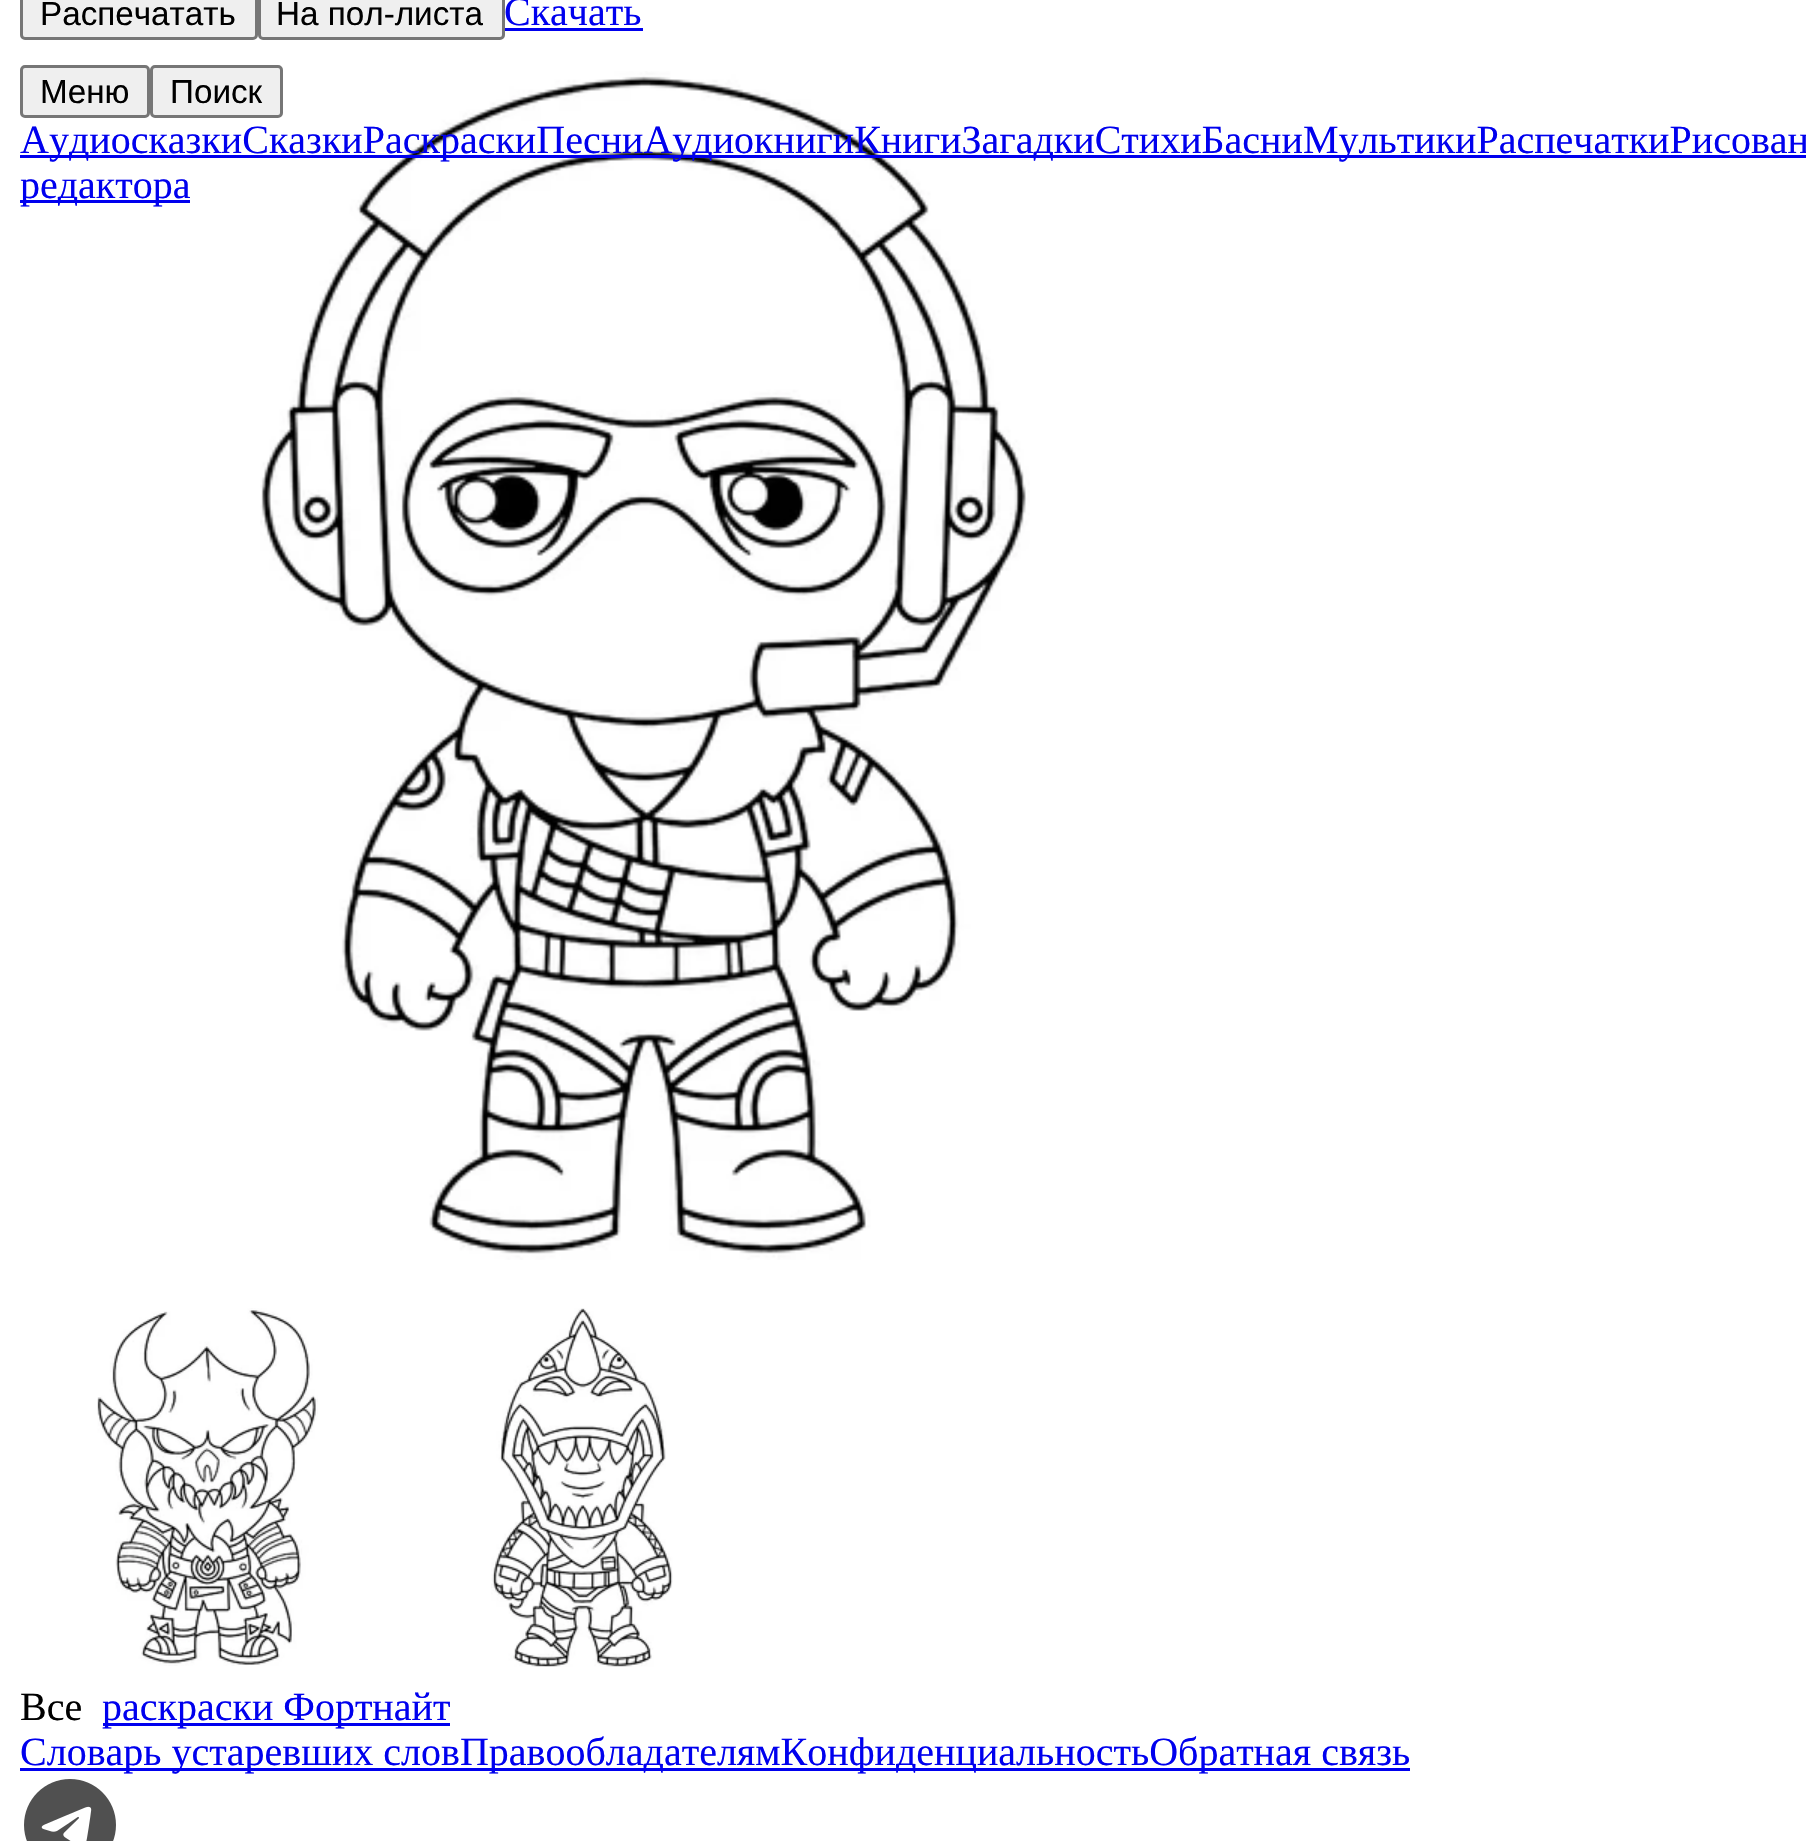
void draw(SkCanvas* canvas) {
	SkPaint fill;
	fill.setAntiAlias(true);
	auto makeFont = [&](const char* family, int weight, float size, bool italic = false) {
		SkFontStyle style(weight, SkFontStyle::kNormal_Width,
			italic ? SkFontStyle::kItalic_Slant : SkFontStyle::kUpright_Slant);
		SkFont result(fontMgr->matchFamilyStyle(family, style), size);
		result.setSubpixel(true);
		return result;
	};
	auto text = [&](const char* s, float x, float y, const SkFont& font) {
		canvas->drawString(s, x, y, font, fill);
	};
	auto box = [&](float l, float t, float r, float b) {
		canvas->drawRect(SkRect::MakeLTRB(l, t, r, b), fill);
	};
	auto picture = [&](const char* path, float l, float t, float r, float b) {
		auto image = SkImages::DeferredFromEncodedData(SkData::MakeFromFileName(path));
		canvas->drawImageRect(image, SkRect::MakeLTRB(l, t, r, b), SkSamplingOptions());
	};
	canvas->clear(0xFFFFFFFF);
	fill.setColor(0xFFEFEFEF);
	canvas->drawRoundRect(SkRect::MakeLTRB(21.5f, -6.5f, 256.5f, 38.5f), 3.5f, 3.5f, fill);
	fill.setStyle(SkPaint::kStroke_Style);
	fill.setStrokeWidth(3);
	fill.setColor(0xFF767676);
	canvas->drawRoundRect(SkRect::MakeLTRB(21.5f, -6.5f, 256.5f, 38.5f), 3.5f, 3.5f, fill);
	fill.setStyle(SkPaint::kFill_Style);
	fill.setColor(0xFFEFEFEF);
	canvas->drawRoundRect(SkRect::MakeLTRB(259.5f, -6.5f, 503.5f, 38.5f), 3.5f, 3.5f, fill);
	fill.setStyle(SkPaint::kStroke_Style);
	fill.setColor(0xFF767676);
	canvas->drawRoundRect(SkRect::MakeLTRB(259.5f, -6.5f, 503.5f, 38.5f), 3.5f, 3.5f, fill);
	fill.setStyle(SkPaint::kFill_Style);
	fill.setColor(0xFF0000EE);
	box(505, 28, 643, 31);
	picture("image0.png", 260, 71, 1030, 1260);
	picture("image1.png", 97, 1308, 318, 1666);
	picture("image2.png", 491, 1308, 673, 1667);
	box(103, 1723, 450, 1726);
	fill.setColor(0xFFEFEFEF);
	canvas->drawRoundRect(SkRect::MakeLTRB(21.5f, 66.5f, 148.5f, 116.5f), 3.5f, 3.5f, fill);
	fill.setStyle(SkPaint::kStroke_Style);
	fill.setColor(0xFF767676);
	canvas->drawRoundRect(SkRect::MakeLTRB(21.5f, 66.5f, 148.5f, 116.5f), 3.5f, 3.5f, fill);
	fill.setStyle(SkPaint::kFill_Style);
	fill.setColor(0xFFEFEFEF);
	canvas->drawRoundRect(SkRect::MakeLTRB(151.5f, 66.5f, 281.5f, 116.5f), 3.5f, 3.5f, fill);
	fill.setStyle(SkPaint::kStroke_Style);
	fill.setColor(0xFF767676);
	canvas->drawRoundRect(SkRect::MakeLTRB(151.5f, 66.5f, 281.5f, 116.5f), 3.5f, 3.5f, fill);
	fill.setStyle(SkPaint::kFill_Style);
	fill.setColor(0xFF0000EE);
	box(20, 155, 1806, 158);
	box(20, 200, 190, 203);
	box(20, 1768, 1410, 1771);
	picture("image3.png", 24, 1779, 116, 1841);
	auto font1 = makeFont("Liberation Sans", 400, 33.25f);
	fill.setColor(0xFF000000);
	text("Распечатать", 40, 25, font1);
	text("На пол-листа", 276, 25, font1);
	auto font2 = makeFont("Liberation Serif", 400, 40);
	fill.setColor(0xFF0000EE);
	text("Скачать", 504, 25, font2);
	fill.setColor(0xFF000000);
	text("Все", 20, 1720, font2);
	fill.setColor(0xFF0000EE);
	text("раскраски Фортнайт", 102, 1720, font2);
	fill.setColor(0xFF000000);
	text("Меню", 40, 103, font1);
	text("Поиск", 170, 103, font1);
	fill.setColor(0xFF0000EE);
	text("АудиосказкиСказкиРаскраскиПесниАудиокнигиКнигиЗагадкиСтихиБасниМультикиРаспечаткиРисован", 20, 153, font2);
	text("редактора", 20, 198, font2);
	text("Словарь устаревших словПравообладателямКонфиденциальностьОбратная связь", 20, 1765, font2);
}
